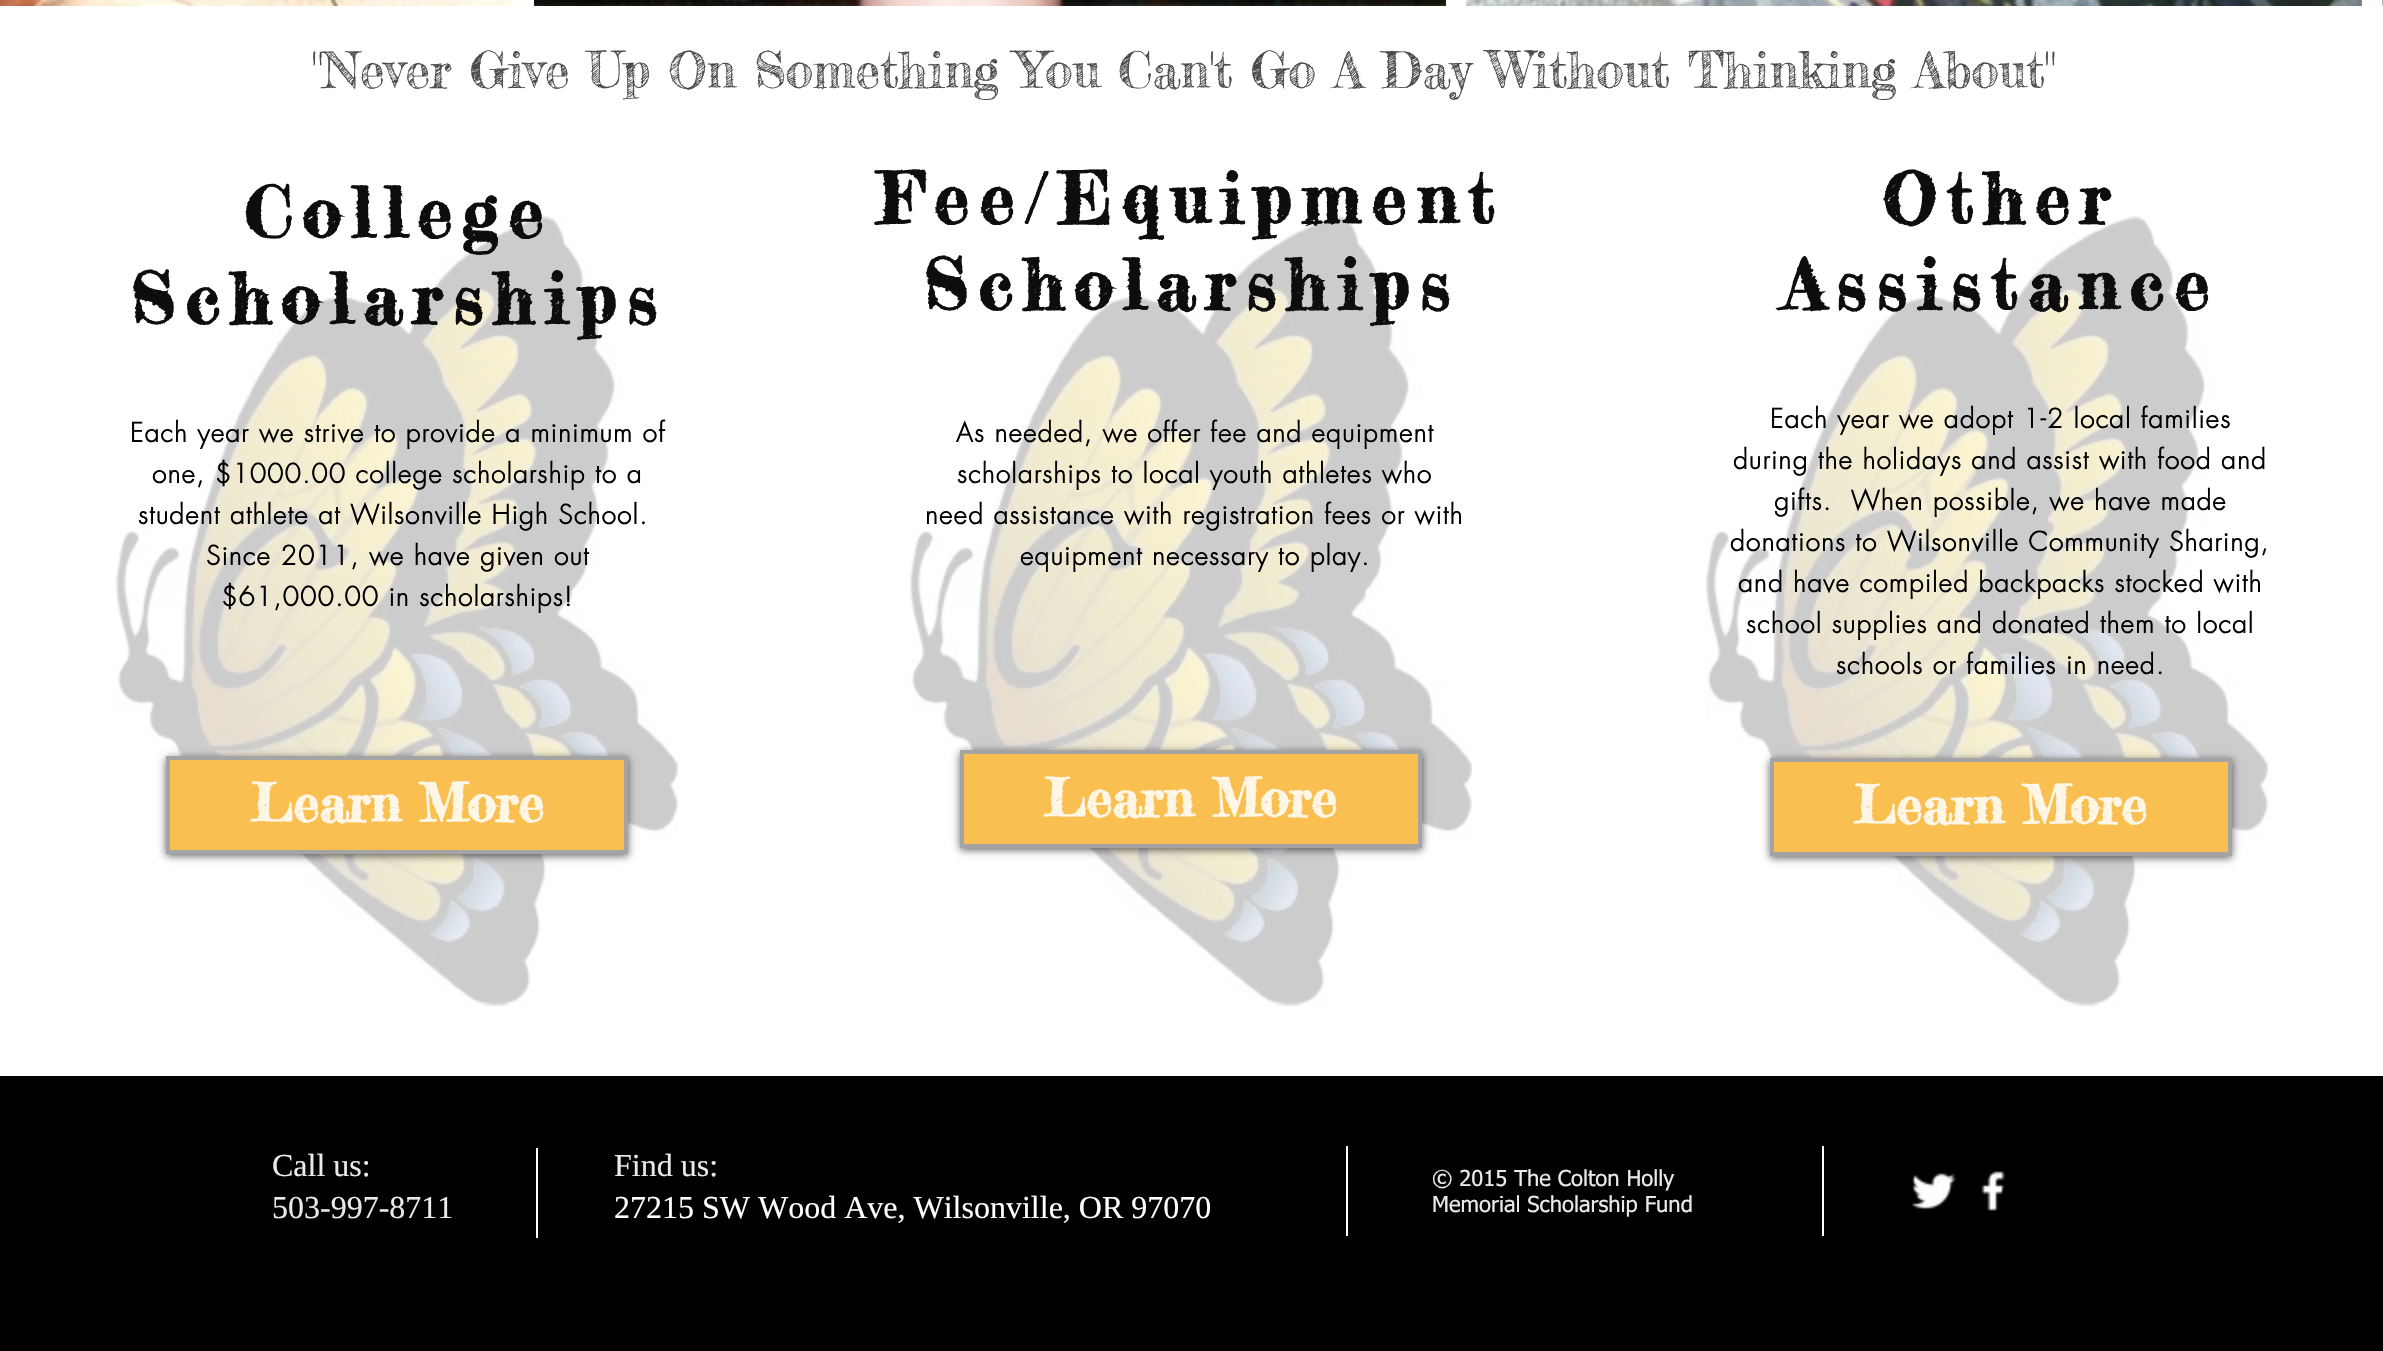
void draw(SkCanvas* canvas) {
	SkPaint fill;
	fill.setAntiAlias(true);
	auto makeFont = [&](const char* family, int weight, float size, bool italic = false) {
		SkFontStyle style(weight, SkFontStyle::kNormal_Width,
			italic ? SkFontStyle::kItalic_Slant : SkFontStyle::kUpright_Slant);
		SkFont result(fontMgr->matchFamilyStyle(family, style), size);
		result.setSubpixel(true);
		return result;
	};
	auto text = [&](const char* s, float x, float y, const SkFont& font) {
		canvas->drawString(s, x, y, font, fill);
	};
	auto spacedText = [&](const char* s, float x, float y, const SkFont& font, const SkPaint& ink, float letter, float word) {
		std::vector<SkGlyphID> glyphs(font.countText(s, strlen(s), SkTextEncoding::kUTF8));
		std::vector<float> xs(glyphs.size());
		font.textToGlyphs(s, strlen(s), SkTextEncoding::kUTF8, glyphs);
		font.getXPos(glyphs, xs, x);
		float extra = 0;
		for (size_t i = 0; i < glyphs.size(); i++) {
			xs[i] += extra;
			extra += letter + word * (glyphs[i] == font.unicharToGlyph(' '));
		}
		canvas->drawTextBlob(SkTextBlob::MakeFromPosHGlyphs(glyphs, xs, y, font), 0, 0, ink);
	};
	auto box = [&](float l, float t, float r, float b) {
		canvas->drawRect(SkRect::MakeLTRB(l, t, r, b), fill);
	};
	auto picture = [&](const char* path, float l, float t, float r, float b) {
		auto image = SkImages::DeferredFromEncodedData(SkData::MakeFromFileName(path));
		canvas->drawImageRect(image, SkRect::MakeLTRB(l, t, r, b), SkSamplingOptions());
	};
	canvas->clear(0xFFFFFFFF);
	picture("image0.png", 0, 0, 514, 6);
	picture("image1.png", 534, 0, 1446, 6);
	fill.setColor(0xFFA4A4A4);
	box(2360, 0, 2362, 6);
	picture("image2.png", 1466, 0, 2362, 6);
	fill.setColor(0xFFBEB5C1);
	box(2382, 0, 2383, 6);
	picture("image3.png", 116, 215, 678, 1007);
	fill.setColor(0x99000000);
	fill.setMaskFilter(SkMaskFilter::MakeBlur(kNormal_SkBlurStyle, 4));
	canvas->drawRect(SkRect::MakeLTRB(166, 758, 628, 856), fill);
	fill.setMaskFilter(nullptr);
	fill.setColor(0xFFF9BF51);
	canvas->drawRect(SkRect::MakeLTRB(168, 758, 626, 852), fill);
	fill.setStyle(SkPaint::kStroke_Style);
	fill.setStrokeWidth(4);
	fill.setColor(0xFFA4A4A4);
	canvas->drawRect(SkRect::MakeLTRB(168, 758, 626, 852), fill);
	picture("image3.png", 910, 215, 1472, 1007);
	fill.setStyle(SkPaint::kFill_Style);
	fill.setColor(0x99000000);
	fill.setMaskFilter(SkMaskFilter::MakeBlur(kNormal_SkBlurStyle, 4));
	canvas->drawRect(SkRect::MakeLTRB(960, 752, 1422, 850), fill);
	fill.setMaskFilter(nullptr);
	fill.setColor(0xFFF9BF51);
	canvas->drawRect(SkRect::MakeLTRB(962, 752, 1420, 846), fill);
	fill.setStyle(SkPaint::kStroke_Style);
	fill.setColor(0xFFA4A4A4);
	canvas->drawRect(SkRect::MakeLTRB(962, 752, 1420, 846), fill);
	picture("image3.png", 1706, 215, 2268, 1007);
	fill.setStyle(SkPaint::kFill_Style);
	fill.setColor(0x99000000);
	fill.setMaskFilter(SkMaskFilter::MakeBlur(kNormal_SkBlurStyle, 4));
	canvas->drawRect(SkRect::MakeLTRB(1770, 760, 2232, 858), fill);
	fill.setMaskFilter(nullptr);
	fill.setColor(0xFFF9BF51);
	canvas->drawRect(SkRect::MakeLTRB(1772, 760, 2230, 854), fill);
	fill.setStyle(SkPaint::kStroke_Style);
	fill.setColor(0xFFA4A4A4);
	canvas->drawRect(SkRect::MakeLTRB(1772, 760, 2230, 854), fill);
	fill.setStyle(SkPaint::kFill_Style);
	fill.setColor(0xFF000000);
	box(0, 1076, 2383, 1351);
	fill.setColor(0xFFFFFFFF);
	box(536, 1148, 538, 1238);
	box(1346, 1146, 1348, 1236);
	box(1822, 1146, 1824, 1236);
	picture("image4.png", 1911, 1173, 1957, 1210);
	picture("image5.png", 1981, 1171, 2005, 1211);
	auto font1 = makeFont("Fredericka the Great", 400, 50);
	fill.setColor(0xFF4A4A4A);
	text("\"Never Give Up On Something You Can't Go A Day Without Thinking About\"", 312, 88, font1);
	auto font2 = makeFont("Fredericka the Great", 700, 70);
	fill.setColor(0xFF0D0D0D);
	spacedText("College", 244, 238, font2, fill, 10.5f, 0);
	spacedText("Scholarships", 130, 324, font2, fill, 10.5f, 0);
	auto font3 = makeFont("futura", 700, 26);
	fill.setColor(0xFF000000);
	spacedText("Each year we strive to provide a minimum of", 130, 442, font3, fill, 1.3f, 0);
	spacedText("one, $1000.00 college scholarship to a", 152, 483, font3, fill, 1.3f, 0);
	spacedText("student athlete at Wilsonville High School.", 138, 524, font3, fill, 1.3f, 0);
	spacedText("Since 2011, we have given out", 206, 565, font3, fill, 1.3f, 0);
	spacedText("$61,000.00 in scholarships!", 221, 606, font3, fill, 1.3f, 0);
	auto font4 = makeFont("Fredericka the Great", 700, 52);
	fill.setColor(0xFFFFF6E5);
	text("Learn More", 251, 822, font4);
	fill.setColor(0xFF0D0D0D);
	spacedText("Fee/Equipment", 878, 224, font2, fill, 10.5f, 0);
	spacedText("Scholarships", 923, 310, font2, fill, 10.5f, 0);
	fill.setColor(0xFF000000);
	spacedText("As needed, we offer fee and equipment", 956, 442, font3, fill, 1.3f, 0);
	spacedText("scholarships to local youth athletes who", 957, 483, font3, fill, 1.3f, 0);
	spacedText("need assistance with registration fees or with", 925, 524, font3, fill, 1.3f, 0);
	spacedText("equipment necessary to play.", 1020, 565, font3, fill, 1.3f, 0);
	fill.setColor(0xFFFFF6E5);
	text("Learn More", 1044, 817, font4);
	fill.setColor(0xFF0D0D0D);
	spacedText("Other", 1882, 224, font2, fill, 10.5f, 0);
	spacedText("Assistance", 1783, 310, font2, fill, 10.5f, 0);
	fill.setColor(0xFF000000);
	spacedText("Each year we adopt 1-2 local families", 1770, 428, font3, fill, 1.3f, 0);
	spacedText("during the holidays and assist with food and", 1733, 469, font3, fill, 1.3f, 0);
	spacedText("gifts.  When possible, we have made", 1774, 510, font3, fill, 1.3f, 0);
	spacedText("donations to Wilsonville Community Sharing,", 1730, 551, font3, fill, 1.3f, 0);
	spacedText("and have compiled backpacks stocked with", 1738, 592, font3, fill, 1.3f, 0);
	spacedText("school supplies and donated them to local", 1746, 633, font3, fill, 1.3f, 0);
	spacedText("schools or families in need.", 1836, 674, font3, fill, 1.3f, 0);
	fill.setColor(0xFFFFF6E5);
	text("Learn More", 1854, 824, font4);
	auto font5 = makeFont("Liberation Serif", 400, 32);
	fill.setColor(0xFFEAEAEA);
	text("Call us:", 272, 1176, font5);
	text("503-997-8711", 272, 1218, font5);
	text("Find us:", 614, 1176, font5);
	fill.setColor(0xFFFFFFFF);
	text("27215 SW Wood Ave, Wilsonville, OR 97070", 614, 1218, font5);
	auto font6 = makeFont("tahoma", 400, 22);
	fill.setColor(0xFFEAEAEA);
	text("© 2015 The Colton Holly", 1432, 1186, font6);
	text("Memorial Scholarship Fund", 1432, 1212, font6);
}
